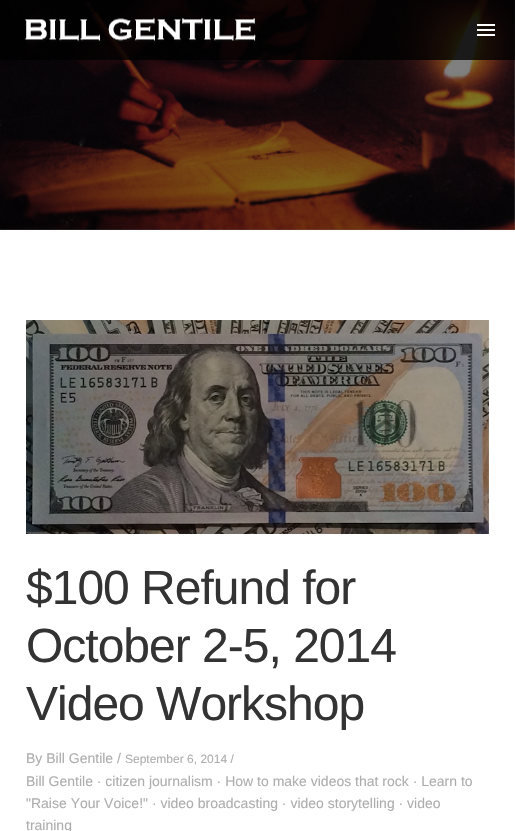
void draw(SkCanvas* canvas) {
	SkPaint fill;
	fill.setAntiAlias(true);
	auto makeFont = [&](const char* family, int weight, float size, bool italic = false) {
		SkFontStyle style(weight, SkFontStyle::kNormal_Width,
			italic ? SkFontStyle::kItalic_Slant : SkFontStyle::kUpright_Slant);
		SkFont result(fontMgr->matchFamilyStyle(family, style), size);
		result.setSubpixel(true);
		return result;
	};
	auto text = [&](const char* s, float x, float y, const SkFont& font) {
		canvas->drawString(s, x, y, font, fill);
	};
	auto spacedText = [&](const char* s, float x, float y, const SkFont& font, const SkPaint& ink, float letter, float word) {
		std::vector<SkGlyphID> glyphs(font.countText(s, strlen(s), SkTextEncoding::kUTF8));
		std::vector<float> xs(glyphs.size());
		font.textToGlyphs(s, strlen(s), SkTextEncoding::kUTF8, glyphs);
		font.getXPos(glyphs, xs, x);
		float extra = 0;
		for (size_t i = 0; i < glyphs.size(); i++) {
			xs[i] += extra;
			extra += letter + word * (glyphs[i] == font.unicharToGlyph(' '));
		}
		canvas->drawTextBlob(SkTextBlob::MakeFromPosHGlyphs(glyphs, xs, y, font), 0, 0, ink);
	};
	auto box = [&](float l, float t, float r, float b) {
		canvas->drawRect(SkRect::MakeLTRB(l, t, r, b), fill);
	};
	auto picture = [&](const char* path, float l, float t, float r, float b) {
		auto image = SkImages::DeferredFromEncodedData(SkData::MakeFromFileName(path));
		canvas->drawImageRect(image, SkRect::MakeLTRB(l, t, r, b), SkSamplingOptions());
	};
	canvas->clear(0xFFFFFFFF);
	fill.setColor(0xFF808080);
	box(0, 0, 515, 230);
	picture("image0.png", 0, 0, 515, 230);
	fill.setColor(0xCC000000);
	box(0, 0, 515, 60);
	picture("image1.png", 25, 18, 257, 42);
	fill.setColor(0xFFFFFFFF);
	box(477, 24, 495, 26);
	box(477, 29, 495, 31);
	box(477, 34, 495, 36);
	picture("image2.png", 26, 320, 489, 534);
	auto font1 = makeFont("Liberation Sans", 400, 48);
	fill.setColor(0xFF333333);
	spacedText("$100 Refund for", 26, 604, font1, fill, -1, 0);
	spacedText("October 2-5, 2014", 26, 662, font1, fill, -1, 0);
	spacedText("Video Workshop", 26, 720, font1, fill, -1, 0);
	auto font2 = makeFont("Liberation Sans", 400, 14);
	fill.setColor(0xFFADADAD);
	text("By Bill Gentile /", 26, 763, font2);
	auto font3 = makeFont("Liberation Sans", 400, 12);
	text("September 6, 2014 /", 125, 763, font3);
	text("Bill Gentile · citizen journalism · How to make videos that rock · Learn to", 26, 786, font2);
	text("\"Raise Your Voice!\" · video broadcasting · video storytelling · video", 26, 808, font2);
	text("training", 26, 830, font2);
}
